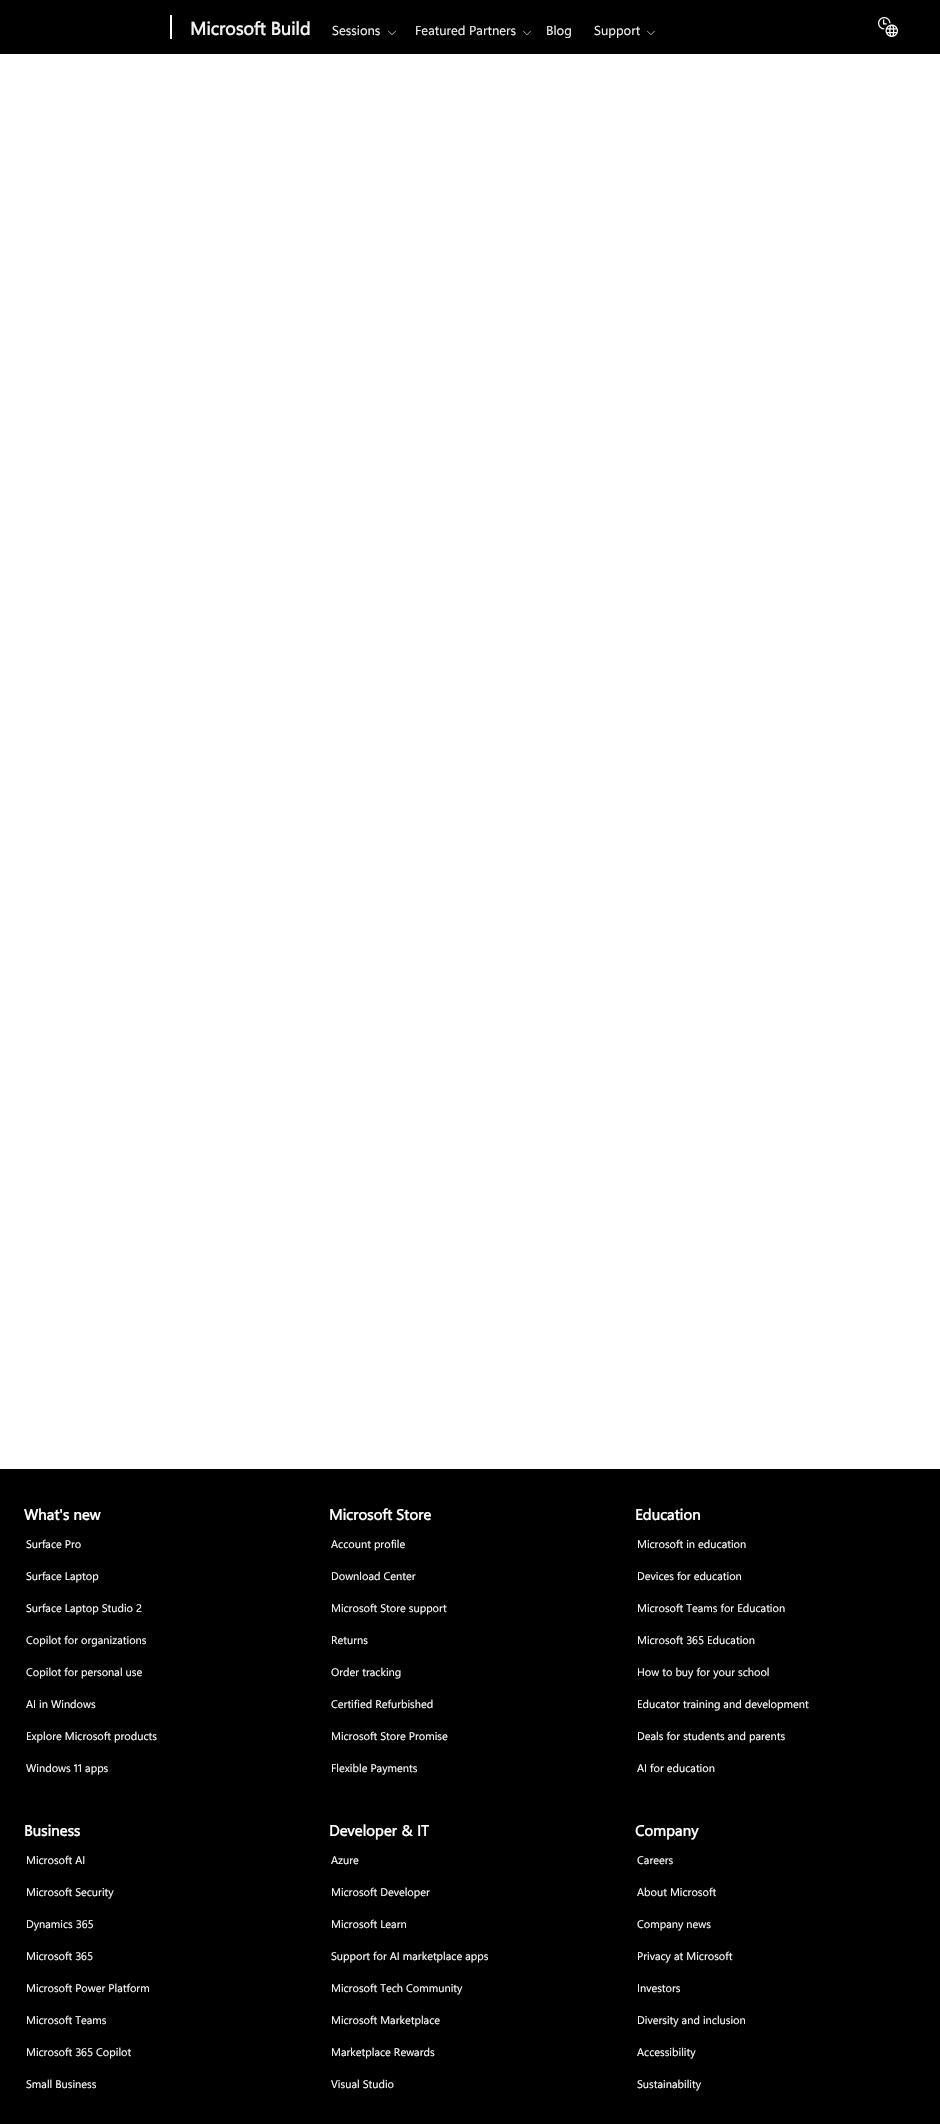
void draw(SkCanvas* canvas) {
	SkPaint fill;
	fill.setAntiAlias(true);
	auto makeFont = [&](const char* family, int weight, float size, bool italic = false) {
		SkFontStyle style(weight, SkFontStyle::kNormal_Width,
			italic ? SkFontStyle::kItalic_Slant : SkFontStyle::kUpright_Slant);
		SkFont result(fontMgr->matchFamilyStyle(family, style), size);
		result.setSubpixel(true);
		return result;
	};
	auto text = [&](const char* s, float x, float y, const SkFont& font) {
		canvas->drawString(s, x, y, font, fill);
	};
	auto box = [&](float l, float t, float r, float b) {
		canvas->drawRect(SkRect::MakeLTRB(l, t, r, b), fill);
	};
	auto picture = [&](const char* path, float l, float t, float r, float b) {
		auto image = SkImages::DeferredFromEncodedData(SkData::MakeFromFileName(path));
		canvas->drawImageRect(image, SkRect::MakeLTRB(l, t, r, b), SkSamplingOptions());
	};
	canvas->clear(0xFFFFFFFF);
	fill.setColor(0xFF000000);
	box(0, 0, 940, 54);
	fill.setColor(0xFFFFFFFF);
	box(170, 15, 172, 39);
	picture("image0.png", 388, 30, 396, 35);
	picture("image0.png", 523, 30, 531, 35);
	picture("image0.png", 647, 30, 655, 35);
	picture("image1.png", 878, 17, 898, 37);
	fill.setColor(0xFF000000);
	box(0, 1469, 940, 2124);
	auto font1 = makeFont("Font", 700, 18);
	fill.setColor(0xFFF2F2F2);
	text("Microsoft Build", 190, 35, font1);
	auto font2 = makeFont("Font", 400, 13);
	text("Sessions", 332, 35, font2);
	text("Featured Partners", 415, 35, font2);
	text("Blog", 546, 35, font2);
	text("Support", 594, 35, font2);
	auto font3 = makeFont("Font", 700, 15);
	fill.setColor(0xFFFFFFFF);
	text("What's new", 24, 1520, font3);
	auto font4 = makeFont("Font", 400, 11);
	text("Surface Pro", 26, 1548, font4);
	text("Surface Laptop", 26, 1580, font4);
	text("Surface Laptop Studio 2", 26, 1612, font4);
	text("Copilot for organizations", 26, 1644, font4);
	text("Copilot for personal use", 26, 1676, font4);
	text("AI in Windows", 26, 1708, font4);
	text("Explore Microsoft products", 26, 1740, font4);
	text("Windows 11 apps", 26, 1772, font4);
	text("Microsoft Store", 329, 1520, font3);
	text("Account profile", 331, 1548, font4);
	text("Download Center", 331, 1580, font4);
	text("Microsoft Store support", 331, 1612, font4);
	text("Returns", 331, 1644, font4);
	text("Order tracking", 331, 1676, font4);
	text("Certified Refurbished", 331, 1708, font4);
	text("Microsoft Store Promise", 331, 1740, font4);
	text("Flexible Payments", 331, 1772, font4);
	text("Education", 635, 1520, font3);
	text("Microsoft in education", 637, 1548, font4);
	text("Devices for education", 637, 1580, font4);
	text("Microsoft Teams for Education", 637, 1612, font4);
	text("Microsoft 365 Education", 637, 1644, font4);
	text("How to buy for your school", 637, 1676, font4);
	text("Educator training and development", 637, 1708, font4);
	text("Deals for students and parents", 637, 1740, font4);
	text("AI for education", 637, 1772, font4);
	text("Business", 24, 1836, font3);
	text("Microsoft AI", 26, 1864, font4);
	text("Microsoft Security", 26, 1896, font4);
	text("Dynamics 365", 26, 1928, font4);
	text("Microsoft 365", 26, 1960, font4);
	text("Microsoft Power Platform", 26, 1992, font4);
	text("Microsoft Teams", 26, 2024, font4);
	text("Microsoft 365 Copilot", 26, 2056, font4);
	text("Small Business", 26, 2088, font4);
	text("Developer & IT", 329, 1836, font3);
	text("Azure", 331, 1864, font4);
	text("Microsoft Developer", 331, 1896, font4);
	text("Microsoft Learn", 331, 1928, font4);
	text("Support for AI marketplace apps", 331, 1960, font4);
	text("Microsoft Tech Community", 331, 1992, font4);
	text("Microsoft Marketplace", 331, 2024, font4);
	text("Marketplace Rewards", 331, 2056, font4);
	text("Visual Studio", 331, 2088, font4);
	text("Company", 635, 1836, font3);
	text("Careers", 637, 1864, font4);
	text("About Microsoft", 637, 1896, font4);
	text("Company news", 637, 1928, font4);
	text("Privacy at Microsoft", 637, 1960, font4);
	text("Investors", 637, 1992, font4);
	text("Diversity and inclusion", 637, 2024, font4);
	text("Accessibility", 637, 2056, font4);
	text("Sustainability", 637, 2088, font4);
}
